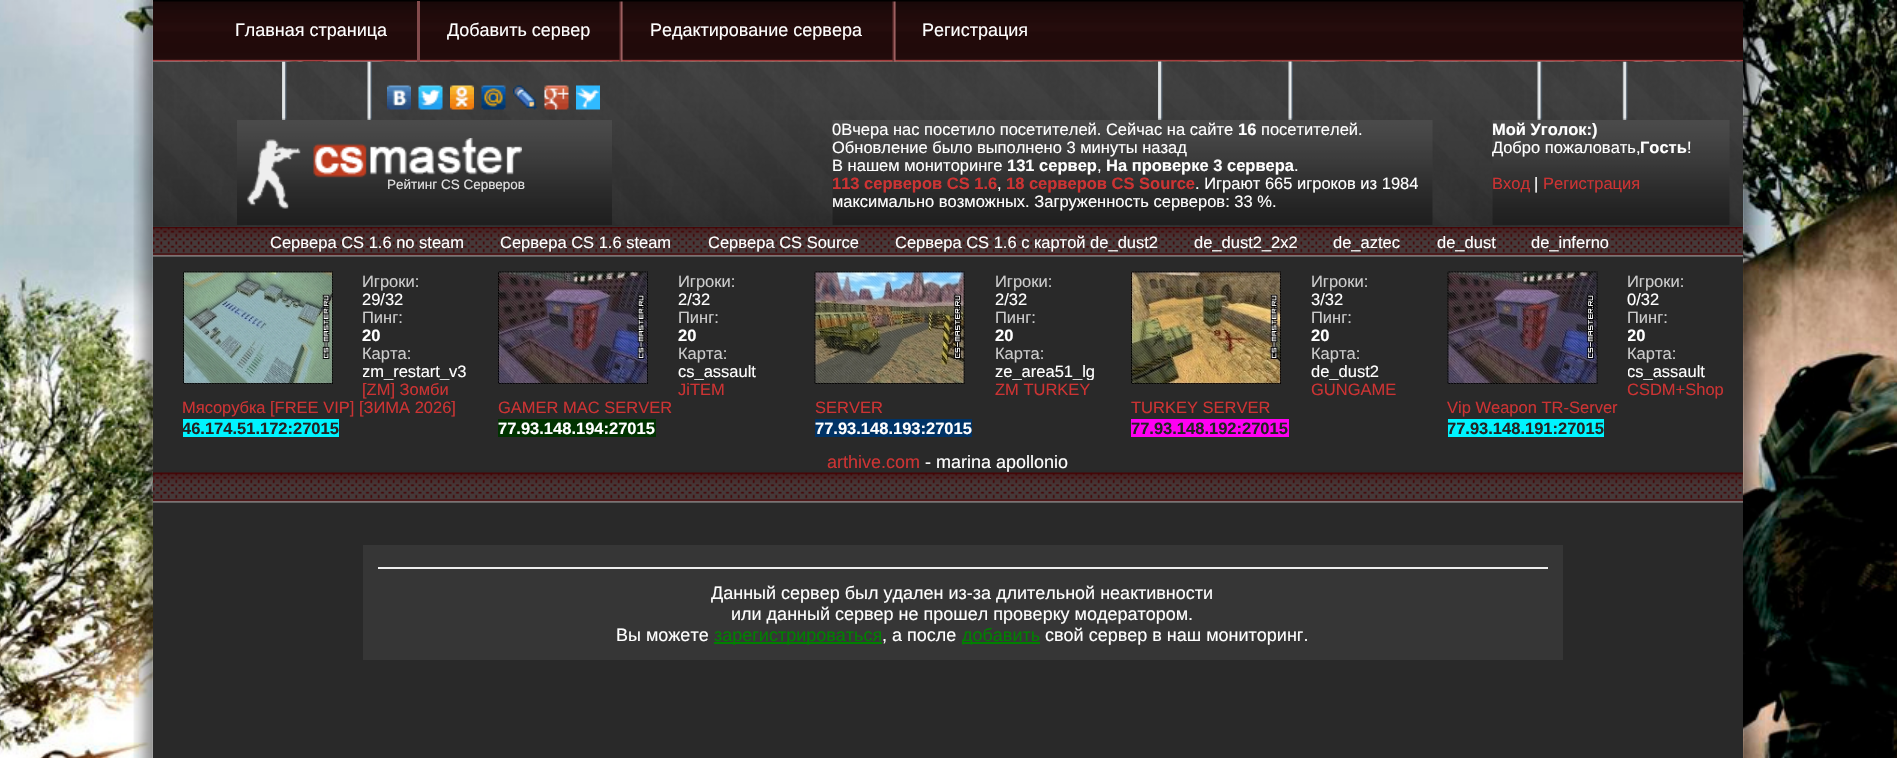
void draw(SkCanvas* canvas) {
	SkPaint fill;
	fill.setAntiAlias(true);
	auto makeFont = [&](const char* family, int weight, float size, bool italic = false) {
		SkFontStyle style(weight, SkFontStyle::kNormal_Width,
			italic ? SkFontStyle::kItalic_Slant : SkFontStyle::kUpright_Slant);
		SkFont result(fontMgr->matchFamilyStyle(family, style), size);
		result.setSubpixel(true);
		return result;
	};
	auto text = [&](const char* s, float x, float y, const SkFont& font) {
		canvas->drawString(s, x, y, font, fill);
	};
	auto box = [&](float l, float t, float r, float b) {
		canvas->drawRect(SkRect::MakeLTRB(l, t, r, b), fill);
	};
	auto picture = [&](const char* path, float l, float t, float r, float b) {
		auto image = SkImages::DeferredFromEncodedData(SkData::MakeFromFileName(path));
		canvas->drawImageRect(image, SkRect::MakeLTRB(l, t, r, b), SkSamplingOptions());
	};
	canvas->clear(0xFFFFFFFF);
	picture("image0.png", 0, 0, 1897, 758);
	picture("image1.png", 133, 0, 1765, 758);
	picture("image2.png", 153, 0, 1743, 62);
	fill.setColor(0xFF363636);
	box(153, 226, 1743, 227);
	picture("image12.png", 153, 61, 1743, 227);
	fill.setColor(0xFF824A4B);
	box(417, 1, 420, 62);
	picture("image3.png", 619, 1, 623, 62);
	picture("image4.png", 892, 1, 896, 62);
	picture("image5.png", 387, 85, 411, 110);
	picture("image6.png", 418, 85, 443, 110);
	picture("image7.png", 450, 85, 474, 110);
	picture("image8.png", 481, 85, 506, 110);
	picture("image9.png", 513, 85, 537, 110);
	picture("image10.png", 544, 85, 569, 110);
	picture("image11.png", 576, 85, 600, 110);
	picture("image13.png", 282, 61, 372, 120);
	picture("image14.png", 237, 120, 612, 225);
	picture("image15.png", 247, 138, 522, 209);
	picture("image16.png", 1537, 61, 1628, 120);
	picture("image17.png", 1492, 120, 1730, 225);
	picture("image18.png", 1158, 61, 1293, 120);
	picture("image19.png", 832, 120, 1433, 225);
	fill.setColor(0xFF393939);
	box(153, 256, 1743, 257);
	picture("image20.png", 153, 227, 1743, 257);
	fill.setColor(0xFF292929);
	box(153, 257, 1743, 758);
	picture("image21.png", 183, 271, 333, 384);
	fill.setColor(0xFF00F3FF);
	box(183, 419, 339, 437);
	picture("image22.png", 498, 271, 648, 384);
	fill.setColor(0xFF003300);
	box(498, 419, 656, 437);
	picture("image23.png", 814, 271, 965, 384);
	fill.setColor(0xFF003366);
	box(815, 419, 972, 437);
	picture("image24.png", 1131, 271, 1281, 384);
	fill.setColor(0xFFFF00F2);
	box(1131, 419, 1289, 437);
	picture("image25.png", 1447, 271, 1598, 384);
	fill.setColor(0xFF00F3FF);
	box(1448, 419, 1604, 437);
	fill.setColor(0xFF393939);
	box(153, 502, 1743, 503);
	picture("image26.png", 153, 472, 1743, 503);
	fill.setColor(0xFF363636);
	box(363, 545, 1563, 660);
	fill.setColor(0xFFEEEEEE);
	box(378, 567, 1548, 569);
	fill.setColor(0xFF008000);
	box(714, 642, 882, 644);
	box(962, 642, 1040, 644);
	auto font1 = makeFont("Liberation Sans", 400, 18);
	fill.setColor(0xFFFFFFFF);
	text("Главная страница", 235, 36, font1);
	text("Добавить сервер", 447, 36, font1);
	text("Редактирование сервера", 650, 36, font1);
	text("Регистрация", 922, 36, font1);
	auto font2 = makeFont("Liberation Sans", 400, 13.5f);
	fill.setColor(0xFFE1E1E1);
	text("Рейтинг CS Серверов", 387, 189, font2);
	auto font3 = makeFont("Liberation Sans", 700, 16.5f);
	fill.setColor(0xFFFFFFFF);
	text("Мой Уголок:)", 1492, 135, font3);
	auto font4 = makeFont("Liberation Sans", 400, 16.5f);
	text("Добро пожаловать,", 1492, 153, font4);
	text("Гость", 1640, 153, font3);
	text("!", 1687, 153, font4);
	fill.setColor(0xFFCC3333);
	text("Вход", 1492, 189, font4);
	fill.setColor(0xFFFFFFFF);
	text("|", 1534, 189, font4);
	fill.setColor(0xFFCC3333);
	text("Регистрация", 1543, 189, font4);
	fill.setColor(0xFFFFFFFF);
	text("0Вчера нас посетило посетителей. Сейчас на сайте", 832, 135, font4);
	text("16", 1238, 135, font3);
	text("посетителей.", 1261, 135, font4);
	text("Обновление было выполнено 3 минуты назад", 832, 153, font4);
	text("В нашем мониторинге", 832, 171, font4);
	text("131 сервер", 1007, 171, font3);
	text(",", 1097, 171, font4);
	text("На проверке 3 сервера", 1106, 171, font3);
	text(".", 1294, 171, font4);
	fill.setColor(0xFFCC3333);
	text("113 серверов CS 1.6", 832, 189, font3);
	fill.setColor(0xFFFFFFFF);
	text(",", 997, 189, font4);
	fill.setColor(0xFFCC3333);
	text("18 серверов CS Source", 1006, 189, font3);
	fill.setColor(0xFFFFFFFF);
	text(". Играют 665 игроков из 1984", 1195, 189, font4);
	text("максимально возможных. Загруженность серверов: 33 %.", 832, 207, font4);
	text("Сервера CS 1.6 no steam", 270, 248, font4);
	text("Сервера CS 1.6 steam", 500, 248, font4);
	text("Сервера CS Source", 708, 248, font4);
	text("Сервера CS 1.6 с картой de_dust2", 895, 248, font4);
	text("de_dust2_2x2", 1194, 248, font4);
	text("de_aztec", 1333, 248, font4);
	text("de_dust", 1437, 248, font4);
	text("de_inferno", 1531, 248, font4);
	fill.setColor(0xFFCCCCCC);
	text("Игроки:", 362, 287, font4);
	fill.setColor(0xFFFFFFFF);
	text("29/32", 362, 305, font4);
	fill.setColor(0xFFCCCCCC);
	text("Пинг:", 362, 323, font4);
	fill.setColor(0xFFFFFFFF);
	text("20", 362, 341, font3);
	fill.setColor(0xFFCCCCCC);
	text("Карта:", 362, 359, font4);
	canvas->save();
	canvas->clipRect(SkRect::MakeLTRB(363, 362, 468, 380));
	fill.setColor(0xFFFFFFFF);
	text("zm_restart_v3", 362, 377, font4);
	canvas->restore();
	fill.setColor(0xFFCC3333);
	text("[ZM] Зомби", 362, 395, font4);
	text("Мясорубка [FREE VIP] [ЗИМА 2026]", 182, 413, font4);
	fill.setColor(0xFF222222);
	text("46.174.51.172:27015", 182, 434, font3);
	fill.setColor(0xFFCCCCCC);
	text("Игроки:", 678, 287, font4);
	fill.setColor(0xFFFFFFFF);
	text("2/32", 678, 305, font4);
	fill.setColor(0xFFCCCCCC);
	text("Пинг:", 678, 323, font4);
	fill.setColor(0xFFFFFFFF);
	text("20", 678, 341, font3);
	fill.setColor(0xFFCCCCCC);
	text("Карта:", 678, 359, font4);
	canvas->save();
	canvas->clipRect(SkRect::MakeLTRB(678, 362, 785, 380));
	fill.setColor(0xFFFFFFFF);
	text("cs_assault", 678, 377, font4);
	canvas->restore();
	fill.setColor(0xFFCC3333);
	text("JiTEM", 678, 395, font4);
	text("GAMER MAC SERVER", 498, 413, font4);
	fill.setColor(0xFFFFFFFF);
	text("77.93.148.194:27015", 498, 434, font3);
	fill.setColor(0xFFCCCCCC);
	text("Игроки:", 995, 287, font4);
	fill.setColor(0xFFFFFFFF);
	text("2/32", 995, 305, font4);
	fill.setColor(0xFFCCCCCC);
	text("Пинг:", 995, 323, font4);
	fill.setColor(0xFFFFFFFF);
	text("20", 995, 341, font3);
	fill.setColor(0xFFCCCCCC);
	text("Карта:", 995, 359, font4);
	canvas->save();
	canvas->clipRect(SkRect::MakeLTRB(995, 362, 1101, 380));
	fill.setColor(0xFFFFFFFF);
	text("ze_area51_lg", 995, 377, font4);
	canvas->restore();
	fill.setColor(0xFFCC3333);
	text("ZM TURKEY", 995, 395, font4);
	text("SERVER", 815, 413, font4);
	fill.setColor(0xFFFFFFFF);
	text("77.93.148.193:27015", 815, 434, font3);
	fill.setColor(0xFFCCCCCC);
	text("Игроки:", 1311, 287, font4);
	fill.setColor(0xFFFFFFFF);
	text("3/32", 1311, 305, font4);
	fill.setColor(0xFFCCCCCC);
	text("Пинг:", 1311, 323, font4);
	fill.setColor(0xFFFFFFFF);
	text("20", 1311, 341, font3);
	fill.setColor(0xFFCCCCCC);
	text("Карта:", 1311, 359, font4);
	canvas->save();
	canvas->clipRect(SkRect::MakeLTRB(1311, 362, 1418, 380));
	fill.setColor(0xFFFFFFFF);
	text("de_dust2", 1311, 377, font4);
	canvas->restore();
	fill.setColor(0xFFCC3333);
	text("GUNGAME", 1311, 395, font4);
	text("TURKEY SERVER", 1131, 413, font4);
	fill.setColor(0xFF222222);
	text("77.93.148.192:27015", 1131, 434, font3);
	fill.setColor(0xFFCCCCCC);
	text("Игроки:", 1627, 287, font4);
	fill.setColor(0xFFFFFFFF);
	text("0/32", 1627, 305, font4);
	fill.setColor(0xFFCCCCCC);
	text("Пинг:", 1627, 323, font4);
	canvas->save();
	canvas->clipRect(SkRect::MakeLTRB(1628, 326, 1733, 344));
	fill.setColor(0xFFFFFFFF);
	text("20", 1627, 341, font3);
	canvas->restore();
	fill.setColor(0xFFCCCCCC);
	text("Карта:", 1627, 359, font4);
	canvas->save();
	canvas->clipRect(SkRect::MakeLTRB(1628, 362, 1733, 380));
	fill.setColor(0xFFFFFFFF);
	text("cs_assault", 1627, 377, font4);
	canvas->restore();
	fill.setColor(0xFFCC3333);
	text("CSDM+Shop", 1627, 395, font4);
	text("Vip Weapon TR-Server", 1447, 413, font4);
	fill.setColor(0xFF222222);
	text("77.93.148.191:27015", 1447, 434, font3);
	fill.setColor(0xFFCC3333);
	text("arthive.com", 827, 468, font1);
	fill.setColor(0xFFFFFFFF);
	text("- marina apollonio", 925, 468, font1);
	text("Данный сервер был удален из-за длительной неактивности", 711, 599, font1);
	text("или данный сервер не прошел проверку модератором.", 731, 620, font1);
	text("Вы можете", 616, 641, font1);
	fill.setColor(0xFF008000);
	text("зарегистрироваться", 714, 641, font1);
	fill.setColor(0xFFFFFFFF);
	text(", а после", 882, 641, font1);
	fill.setColor(0xFF008000);
	text("добавить", 962, 641, font1);
	fill.setColor(0xFFFFFFFF);
	text("свой сервер в наш мониторинг.", 1045, 641, font1);
}
